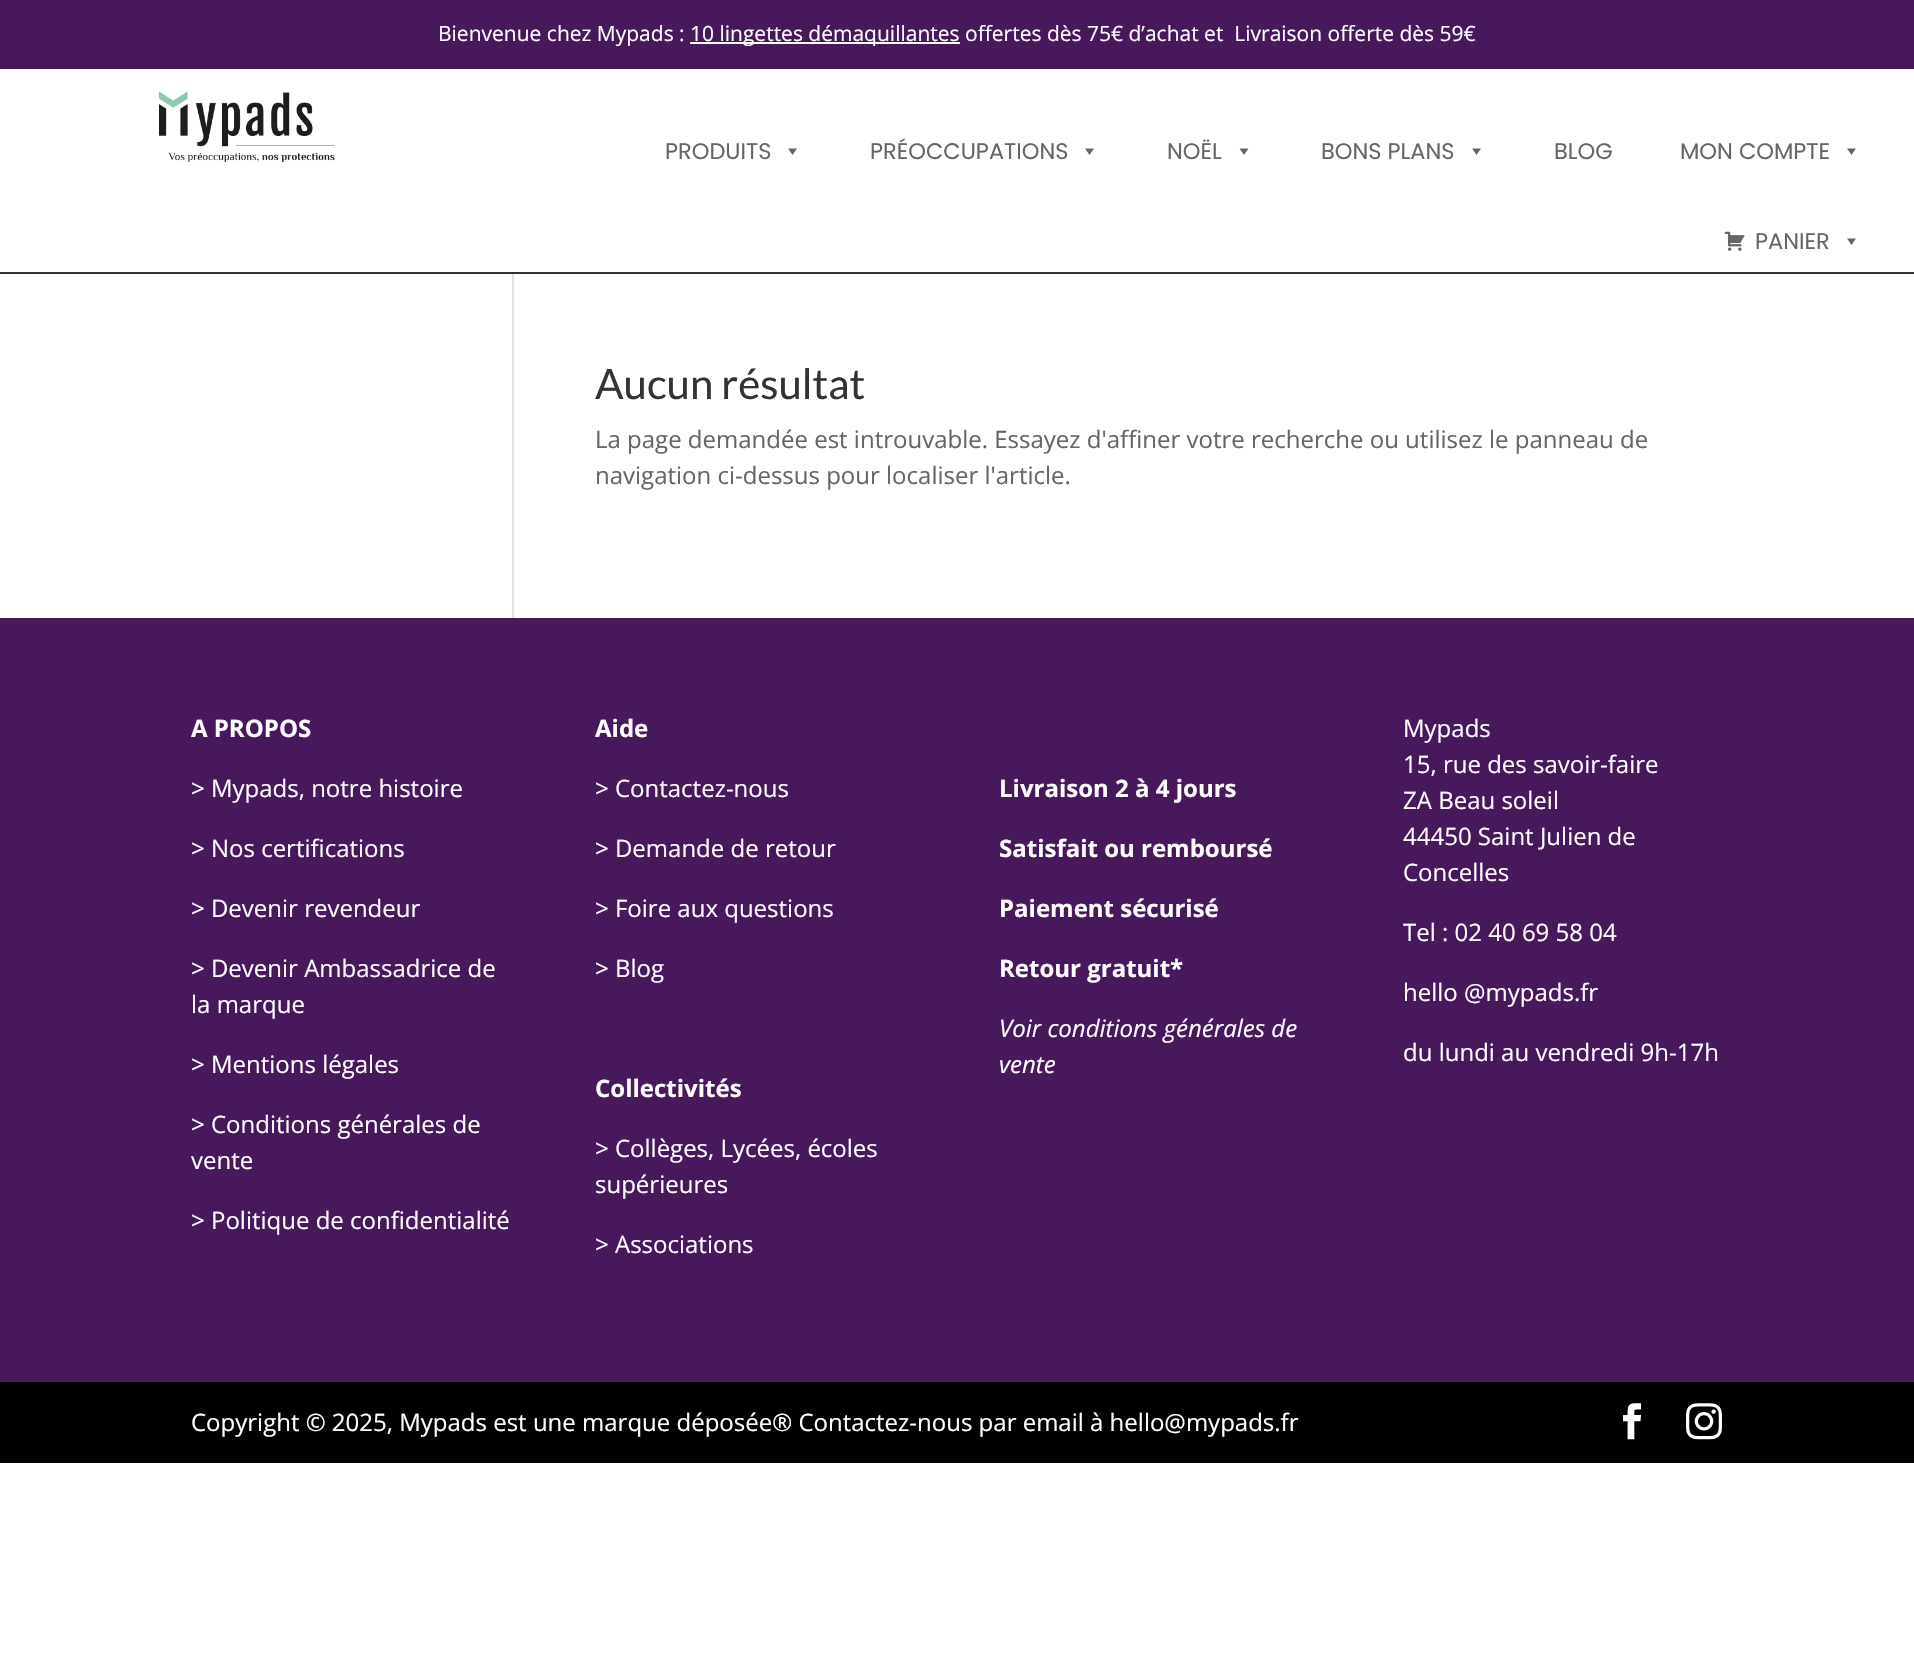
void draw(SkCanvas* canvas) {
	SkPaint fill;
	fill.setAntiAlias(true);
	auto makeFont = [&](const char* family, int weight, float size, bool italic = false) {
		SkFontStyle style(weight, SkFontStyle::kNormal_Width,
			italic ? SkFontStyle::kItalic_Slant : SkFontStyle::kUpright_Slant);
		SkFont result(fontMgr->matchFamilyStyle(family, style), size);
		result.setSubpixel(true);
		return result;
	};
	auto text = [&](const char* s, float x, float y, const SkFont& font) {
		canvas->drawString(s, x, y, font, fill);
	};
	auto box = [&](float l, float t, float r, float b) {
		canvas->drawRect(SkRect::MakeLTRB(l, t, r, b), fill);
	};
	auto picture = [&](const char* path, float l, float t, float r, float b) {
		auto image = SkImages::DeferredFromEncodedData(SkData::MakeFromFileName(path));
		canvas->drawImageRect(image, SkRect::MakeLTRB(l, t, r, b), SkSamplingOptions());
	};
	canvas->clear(0xFFFFFFFF);
	fill.setColor(0xFF47195C);
	box(0, 0, 1914, 69);
	fill.setColor(0xFFFFFFFF);
	box(690, 42, 960, 44);
	fill.setColor(0xFFE2E2E2);
	box(512, 273, 514, 618);
	fill.setColor(0xFF333333);
	box(0, 272, 1914, 274);
	picture("image0.png", 159, 91, 335, 162);
	fill.setColor(0xFF666666);
	canvas->drawPath(SkPathBuilder().moveTo(797, 148.5f).lineTo(792.5f, 155).lineTo(788, 148.5f).close().detach(), fill);
	canvas->drawPath(SkPathBuilder().moveTo(1094, 148.5f).lineTo(1089.5f, 155).lineTo(1085, 148.5f).close().detach(), fill);
	canvas->drawPath(SkPathBuilder().moveTo(1248.5f, 148.5f).lineTo(1244, 155).lineTo(1239.5f, 148.5f).close().detach(), fill);
	canvas->drawPath(SkPathBuilder().moveTo(1481, 148.5f).lineTo(1476.5f, 155).lineTo(1472, 148.5f).close().detach(), fill);
	canvas->drawPath(SkPathBuilder().moveTo(1856, 148.5f).lineTo(1851.5f, 155).lineTo(1847, 148.5f).close().detach(), fill);
	picture("image1.png", 1724, 231, 1745, 251);
	canvas->drawPath(SkPathBuilder().moveTo(1856, 238.5f).lineTo(1851.5f, 245).lineTo(1847, 238.5f).close().detach(), fill);
	fill.setColor(0xFF47195C);
	box(0, 618, 1914, 1382);
	fill.setColor(0xFF000000);
	box(0, 1382, 1914, 1463);
	picture("image2.png", 1623, 1403, 1642, 1440);
	picture("image3.png", 1686, 1403, 1722, 1440);
	auto font1 = makeFont("Open Sans", 400, 21);
	fill.setColor(0xFFFFFFFF);
	text("Bienvenue chez Mypads :", 438, 41, font1);
	text("10 lingettes démaquillantes offertes dès 75€ d’achat et  Livraison offerte dès 59€", 690, 41, font1);
	auto font2 = makeFont("Poppins", 400, 22.5f);
	fill.setColor(0xFF666666);
	text("PRODUITS", 665, 159, font2);
	text("PRÉOCCUPATIONS", 870, 159, font2);
	text("NOËL", 1167, 159, font2);
	text("BONS PLANS", 1321, 159, font2);
	text("BLOG", 1554, 159, font2);
	text("MON COMPTE", 1680, 159, font2);
	text("PANIER", 1755, 249, font2);
	auto font3 = makeFont("Lato", 400, 42);
	fill.setColor(0xFF333333);
	text("Aucun résultat", 595, 399, font3);
	auto font4 = makeFont("Open Sans", 400, 24);
	fill.setColor(0xFF666666);
	text("La page demandée est introuvable. Essayez d'affiner votre recherche ou utilisez le panneau de", 595, 448, font4);
	text("navigation ci-dessus pour localiser l'article.", 595, 484, font4);
	auto font5 = makeFont("Open Sans", 700, 24);
	fill.setColor(0xFFFFFFFF);
	text("A PROPOS", 191, 737, font5);
	text("> Mypads, notre histoire", 191, 797, font4);
	text("> Nos certifications", 191, 857, font4);
	text("> Devenir revendeur", 191, 917, font4);
	text("> Devenir Ambassadrice de", 191, 977, font4);
	text("la marque", 191, 1013, font4);
	text("> Mentions légales", 191, 1073, font4);
	text("> Conditions générales de", 191, 1133, font4);
	text("vente", 191, 1169, font4);
	text("> Politique de confidentialité", 191, 1229, font4);
	text("Aide", 595, 737, font5);
	text("> Contactez-nous", 595, 797, font4);
	text("> Demande de retour", 595, 857, font4);
	text("> Foire aux questions", 595, 917, font4);
	text("> Blog", 595, 977, font4);
	text("Collectivités", 595, 1097, font5);
	text("> Collèges, Lycées, écoles", 595, 1157, font4);
	text("supérieures", 595, 1193, font4);
	text("> Associations", 595, 1253, font4);
	text("Livraison 2 à 4 jours", 999, 797, font5);
	text("Satisfait ou remboursé", 999, 857, font5);
	text("Paiement sécurisé", 999, 917, font5);
	text("Retour gratuit*", 999, 977, font5);
	auto font6 = makeFont("Open Sans", 400, 24, true);
	text("Voir conditions générales de", 999, 1037, font6);
	text("vente", 999, 1073, font6);
	text("Mypads", 1403, 737, font4);
	text("15, rue des savoir-faire", 1403, 773, font4);
	text("ZA Beau soleil", 1403, 809, font4);
	text("44450 Saint Julien de", 1403, 845, font4);
	text("Concelles", 1403, 881, font4);
	text("Tel : 02 40 69 58 04", 1403, 941, font4);
	text("hello @mypads.fr", 1403, 1001, font4);
	text("du lundi au vendredi 9h-17h", 1403, 1061, font4);
	text("Copyright © 2025, Mypads est une marque déposée® Contactez-nous par email à hello@mypads.fr", 191, 1431, font4);
}
